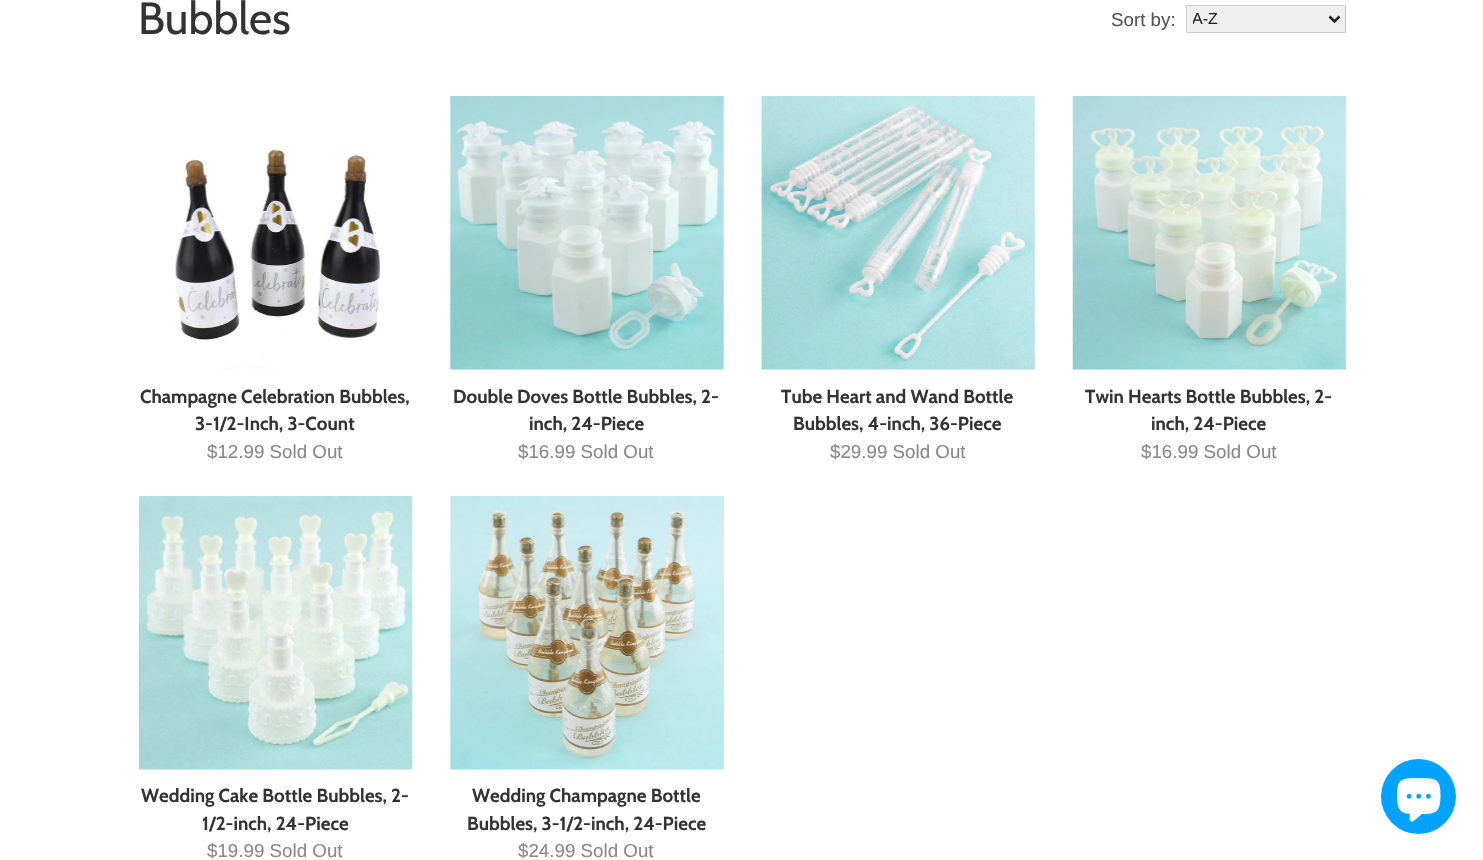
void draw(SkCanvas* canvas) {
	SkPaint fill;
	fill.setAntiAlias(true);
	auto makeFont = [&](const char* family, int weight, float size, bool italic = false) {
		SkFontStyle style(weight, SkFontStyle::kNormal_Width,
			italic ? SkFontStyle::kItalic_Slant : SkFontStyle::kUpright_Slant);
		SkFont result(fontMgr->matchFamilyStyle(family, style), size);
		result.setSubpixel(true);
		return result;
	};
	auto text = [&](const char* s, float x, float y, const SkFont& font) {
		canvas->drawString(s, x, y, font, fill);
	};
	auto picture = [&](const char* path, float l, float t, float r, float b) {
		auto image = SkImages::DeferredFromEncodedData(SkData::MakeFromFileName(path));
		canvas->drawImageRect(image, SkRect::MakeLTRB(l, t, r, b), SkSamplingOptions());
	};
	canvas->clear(0xFFFFFFFF);
	fill.setColor(0xFFEFEFEF);
	canvas->drawRoundRect(SkRect::MakeLTRB(1186.5f, 5.5f, 1345.5f, 32.5f), 0.5f, 0.5f, fill);
	fill.setStyle(SkPaint::kStroke_Style);
	fill.setStrokeWidth(1);
	fill.setColor(0xFFCCCCCC);
	canvas->drawRoundRect(SkRect::MakeLTRB(1186.5f, 5.5f, 1345.5f, 32.5f), 0.5f, 0.5f, fill);
	fill.setStrokeWidth(2.5f);
	fill.setColor(0xFF222222);
	canvas->drawPath(SkPathBuilder().moveTo(1329.5f, 16.5f).lineTo(1334.5f, 21.5f).lineTo(1339.5f, 16.5f).detach(), fill);
	picture("image0.png", 175, 147, 382, 369);
	picture("image1.png", 449, 96, 724, 370);
	picture("image2.png", 760, 96, 1035, 370);
	picture("image3.png", 1072, 96, 1347, 370);
	picture("image4.png", 139, 496, 413, 770);
	picture("image5.png", 449, 496, 724, 770);
	fill.setStyle(SkPaint::kFill_Style);
	fill.setColor(0xFF02A2FF);
	canvas->drawCircle(1418.5f, 796.5f, 37.5f, fill);
	picture("image6.png", 1397, 778, 1441, 822);
	auto font1 = makeFont("Cabin", 400, 45);
	fill.setColor(0xFF333333);
	text("Bubbles", 138, 34, font1);
	auto font2 = makeFont("Liberation Sans", 400, 18.75f);
	fill.setColor(0xFF555555);
	text("Sort by:", 1111, 26, font2);
	canvas->save();
	canvas->clipRect(SkRect::MakeLTRB(1193, 9, 1325, 30));
	auto font3 = makeFont("Liberation Sans", 400, 16);
	fill.setColor(0xFF222222);
	text("A-Z", 1192, 24, font3);
	canvas->restore();
	auto font4 = makeFont("Cabin", 700, 18.75f);
	fill.setColor(0xFF333333);
	text("Champagne Celebration Bubbles,", 140, 403, font4);
	text("3-1/2-Inch, 3-Count", 195, 430, font4);
	fill.setColor(0xFF888888);
	text("$12.99 Sold Out", 207, 458, font2);
	fill.setColor(0xFF333333);
	text("Double Doves Bottle Bubbles, 2-", 453, 403, font4);
	text("inch, 24-Piece", 529, 430, font4);
	fill.setColor(0xFF888888);
	text("$16.99 Sold Out", 518, 458, font2);
	fill.setColor(0xFF333333);
	text("Tube Heart and Wand Bottle", 781, 403, font4);
	text("Bubbles, 4-inch, 36-Piece", 793, 430, font4);
	fill.setColor(0xFF888888);
	text("$29.99 Sold Out", 830, 458, font2);
	fill.setColor(0xFF333333);
	text("Twin Hearts Bottle Bubbles, 2-", 1085, 403, font4);
	text("inch, 24-Piece", 1151, 430, font4);
	fill.setColor(0xFF888888);
	text("$16.99 Sold Out", 1141, 458, font2);
	fill.setColor(0xFF333333);
	text("Wedding Cake Bottle Bubbles, 2-", 141, 802, font4);
	text("1/2-inch, 24-Piece", 202, 830, font4);
	fill.setColor(0xFF888888);
	text("$19.99 Sold Out", 207, 857, font2);
	fill.setColor(0xFF333333);
	text("Wedding Champagne Bottle", 472, 802, font4);
	text("Bubbles, 3-1/2-inch, 24-Piece", 467, 830, font4);
	fill.setColor(0xFF888888);
	text("$24.99 Sold Out", 518, 857, font2);
}
